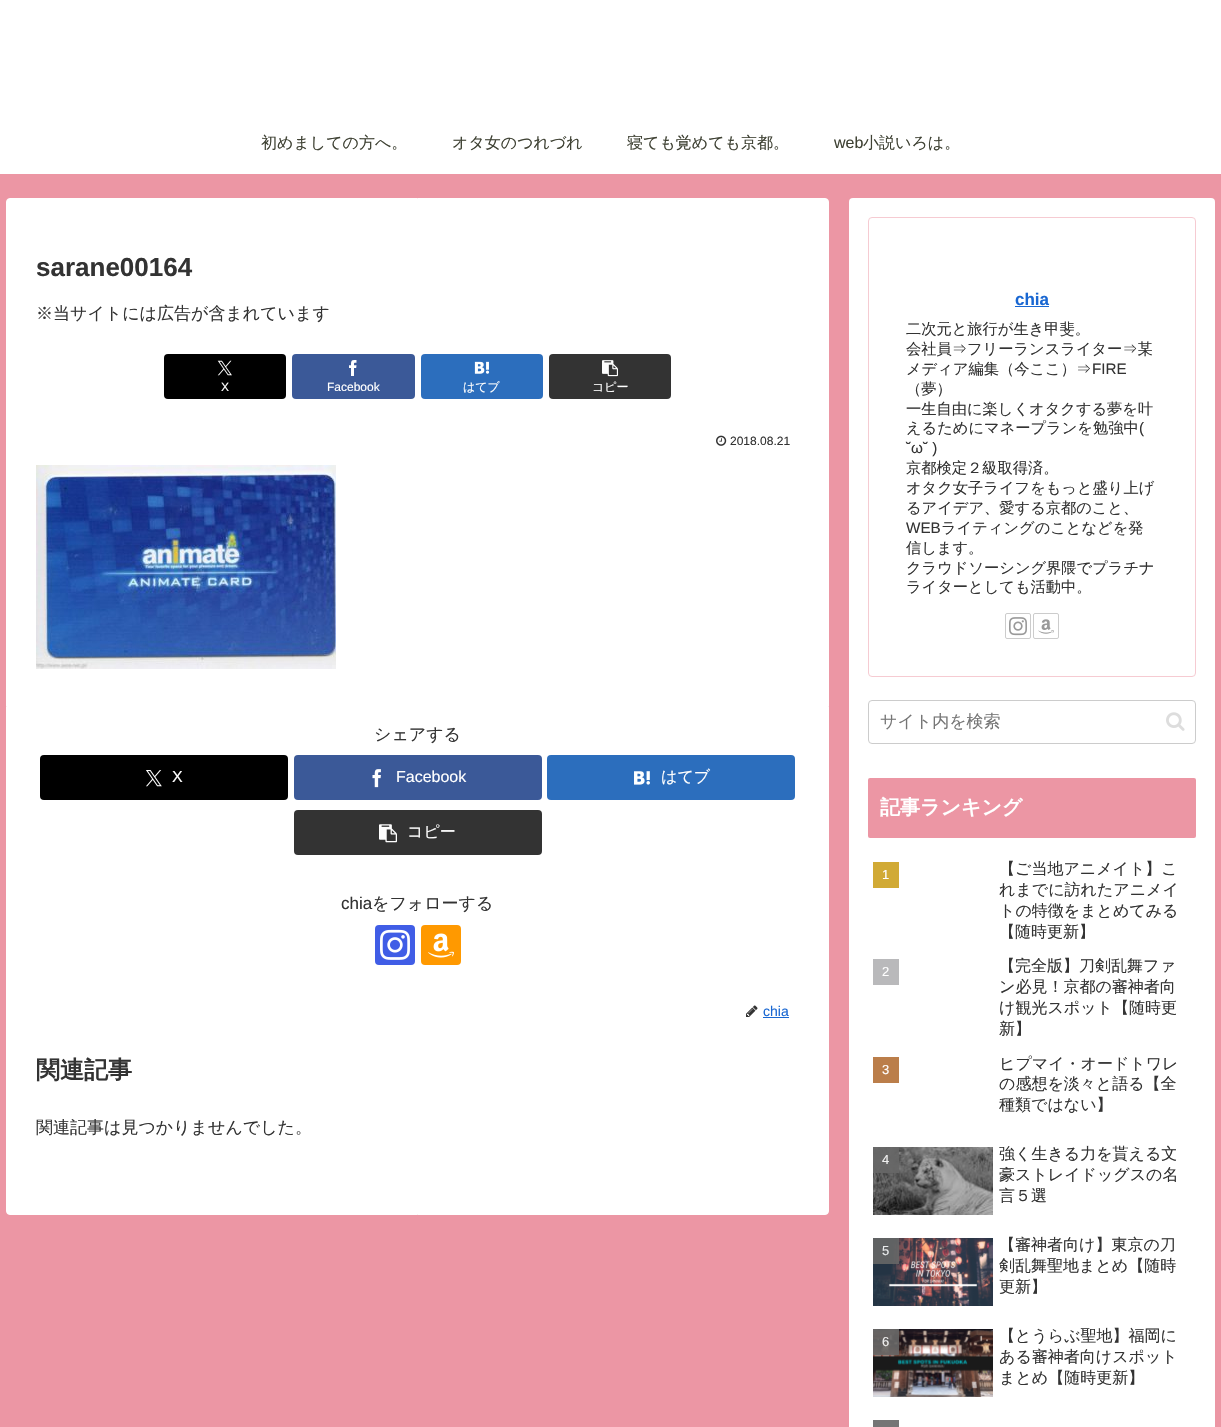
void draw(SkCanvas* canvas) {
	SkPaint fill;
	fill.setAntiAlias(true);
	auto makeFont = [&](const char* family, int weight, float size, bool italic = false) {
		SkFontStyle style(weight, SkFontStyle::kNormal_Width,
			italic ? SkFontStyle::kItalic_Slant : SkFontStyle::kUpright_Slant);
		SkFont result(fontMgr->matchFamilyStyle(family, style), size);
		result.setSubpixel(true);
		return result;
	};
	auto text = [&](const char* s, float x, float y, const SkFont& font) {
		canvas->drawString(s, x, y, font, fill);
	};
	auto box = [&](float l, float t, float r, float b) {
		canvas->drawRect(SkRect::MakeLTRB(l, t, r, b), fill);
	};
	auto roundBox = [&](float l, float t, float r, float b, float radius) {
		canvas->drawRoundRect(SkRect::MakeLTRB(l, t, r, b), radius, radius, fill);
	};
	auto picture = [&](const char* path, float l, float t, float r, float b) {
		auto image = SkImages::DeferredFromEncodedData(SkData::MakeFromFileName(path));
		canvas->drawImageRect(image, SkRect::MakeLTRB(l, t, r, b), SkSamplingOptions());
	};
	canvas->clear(0xFFEC96A4);
	fill.setColor(0xFFFFFFFF);
	box(0, 0, 1221, 174);
	canvas->drawRoundRect(SkRect::MakeLTRB(6.5f, 198.5f, 828.5f, 1214.5f), 3.5f, 3.5f, fill);
	fill.setStyle(SkPaint::kStroke_Style);
	fill.setStrokeWidth(1);
	canvas->drawRoundRect(SkRect::MakeLTRB(6.5f, 198.5f, 828.5f, 1214.5f), 3.5f, 3.5f, fill);
	fill.setStyle(SkPaint::kFill_Style);
	fill.setColor(0xFF000000);
	roundBox(164, 354, 286, 399, 4);
	picture("image0.png", 217, 360, 232, 376);
	fill.setColor(0xFF3B5998);
	roundBox(292, 354, 415, 399, 4);
	picture("image1.png", 349, 360, 357, 376);
	fill.setColor(0xFF2C6EBD);
	roundBox(421, 354, 543, 399, 4);
	picture("image2.png", 474, 361, 490, 374);
	fill.setColor(0xFF333333);
	roundBox(549, 354, 671, 399, 4);
	picture("image3.png", 602, 360, 618, 377);
	picture("image4.png", 716, 435, 727, 446);
	picture("image5.png", 36, 465, 336, 669);
	fill.setColor(0xFF000000);
	roundBox(40, 755, 288, 800, 4);
	picture("image6.png", 146, 770, 162, 787);
	fill.setColor(0xFF3B5998);
	roundBox(294, 755, 542, 800, 4);
	picture("image7.png", 372, 769, 381, 788);
	fill.setColor(0xFF2C6EBD);
	roundBox(547, 755, 795, 800, 4);
	picture("image8.png", 634, 771, 650, 785);
	fill.setColor(0xFF333333);
	roundBox(294, 810, 542, 855, 4);
	picture("image9.png", 379, 824, 397, 843);
	fill.setColor(0xFF405DE6);
	roundBox(375, 925, 415, 965, 4);
	picture("image10.png", 380, 929, 410, 960);
	fill.setColor(0xFFFF9900);
	roundBox(421, 925, 461, 965, 4);
	picture("image11.png", 428, 933, 454, 958);
	picture("image12.png", 746, 1005, 758, 1017);
	fill.setColor(0xFF1967D2);
	box(763, 1017, 789, 1018);
	fill.setColor(0xFFFFFFFF);
	roundBox(849, 198, 1215, 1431, 4);
	fill.setStyle(SkPaint::kStroke_Style);
	fill.setColor(0xFFF6CBD2);
	canvas->drawRoundRect(SkRect::MakeLTRB(868.5f, 217.5f, 1195.5f, 676.5f), 3.5f, 3.5f, fill);
	fill.setStyle(SkPaint::kFill_Style);
	fill.setColor(0xFF1967D2);
	box(1015, 306, 1049, 307);
	fill.setStyle(SkPaint::kStroke_Style);
	fill.setColor(0xFFCCCCCC);
	canvas->drawRoundRect(SkRect::MakeLTRB(1005.5f, 613.5f, 1030.5f, 638.5f), 1.5f, 1.5f, fill);
	picture("image13.png", 1009, 617, 1027, 636);
	canvas->drawRoundRect(SkRect::MakeLTRB(1033.5f, 613.5f, 1058.5f, 638.5f), 1.5f, 1.5f, fill);
	picture("image14.png", 1038, 619, 1054, 634);
	canvas->drawRoundRect(SkRect::MakeLTRB(868.5f, 700.5f, 1195.5f, 743.5f), 3.5f, 3.5f, fill);
	picture("image15.png", 1166, 712, 1185, 731);
	fill.setStyle(SkPaint::kFill_Style);
	fill.setColor(0xFFEC96A4);
	roundBox(868, 778, 1196, 838, 2);
	fill.setColor(0xFFD1AA35);
	box(873, 862, 899, 888);
	fill.setColor(0xFFB9B9BB);
	box(873, 959, 899, 985);
	fill.setColor(0xFFBB7E4A);
	box(873, 1057, 899, 1083);
	picture("image16.png", 873, 1147, 993, 1215);
	fill.setColor(0xE6666666);
	box(873, 1147, 899, 1173);
	picture("image17.png", 873, 1238, 993, 1306);
	box(873, 1238, 899, 1264);
	picture("image18.png", 873, 1329, 993, 1397);
	box(873, 1329, 899, 1355);
	fill.setColor(0xFF757575);
	box(873, 1420, 899, 1427);
	auto font1 = makeFont("WenQuanYi Zen Hei", 500, 16);
	fill.setColor(0xFF3F4234);
	text("初めましての方へ。", 261, 148, font1);
	text("オタ女のつれづれ", 452, 148, font1);
	text("寝ても覚めても京都。", 627, 148, font1);
	auto font2 = makeFont("Liberation Sans", 400, 16);
	text("web", 834, 148, font2);
	text("小説いろは。", 863, 148, font1);
	auto font3 = makeFont("Liberation Sans", 700, 26);
	fill.setColor(0xFF333333);
	text("sarane00164", 36, 276, font3);
	auto font4 = makeFont("WenQuanYi Zen Hei", 500, 17);
	text("※当サイトには広告が含まれています", 36, 319, font4);
	auto font5 = makeFont("Liberation Sans", 400, 12);
	fill.setColor(0xFFFFFFFF);
	text("X", 221, 391, font5);
	text("Facebook", 327, 391, font5);
	auto font6 = makeFont("WenQuanYi Zen Hei", 500, 12);
	text("はてブ", 463, 391, font6);
	text("コピー", 592, 391, font6);
	fill.setColor(0xFF333333);
	text("2018.08.21", 730, 445, font5);
	text("シェアする", 374, 740, font4);
	fill.setColor(0xFFFFFFFF);
	text("X", 172, 782, font2);
	text("Facebook", 396, 782, font2);
	text("はてブ", 661, 782, font1);
	text("コピー", 407, 837, font1);
	auto font7 = makeFont("Liberation Sans", 400, 17);
	fill.setColor(0xFF333333);
	text("chia", 341, 909, font7);
	text("をフォローする", 372, 909, font4);
	auto font8 = makeFont("Liberation Sans", 400, 14);
	fill.setColor(0xFF1967D2);
	text("chia", 763, 1016, font8);
	auto font9 = makeFont("WenQuanYi Zen Hei", 700, 24);
	fill.setColor(0xFF333333);
	text("関連記事", 36, 1078, font9);
	text("関連記事は見つかりませんでした。", 36, 1133, font4);
	auto font10 = makeFont("Liberation Sans", 700, 17);
	fill.setColor(0xFF1967D2);
	text("chia", 1015, 305, font10);
	auto font11 = makeFont("WenQuanYi Zen Hei", 500, 15.25f);
	fill.setColor(0xFF333333);
	text("二次元と旅行が生き甲斐。", 906, 334, font11);
	text("会社員⇒フリーランスライター⇒某", 906, 354, font11);
	text("メディア編集（今ここ）⇒", 906, 374, font11);
	auto font12 = makeFont("Liberation Sans", 400, 15.25f);
	text("FIRE", 1092, 374, font12);
	text("（夢）", 906, 394, font11);
	text("一生自由に楽しくオタクする夢を叶", 906, 414, font11);
	text("えるためにマネープランを勉強中", 906, 433, font11);
	text("(", 1139, 433, font12);
	text("˘ω˘ )", 906, 453, font12);
	text("京都検定２級取得済。", 906, 473, font11);
	text("オタク女子ライフをもっと盛り上げ", 906, 493, font11);
	text("るアイデア、愛する京都のこと、", 906, 513, font11);
	text("WEB", 906, 533, font12);
	text("ライティングのことなどを発", 941, 533, font11);
	text("信します。", 906, 553, font11);
	text("クラウドソーシング界隈でプラチナ", 906, 573, font11);
	text("ライターとしても活動中。", 906, 592, font11);
	fill.setColor(0xFF757575);
	text("サイト内を検索", 880, 727, font4);
	auto font13 = makeFont("WenQuanYi Zen Hei", 700, 20);
	fill.setColor(0xFFFFFFFF);
	text("記事ランキング", 880, 814, font13);
	auto font14 = makeFont("Liberation Sans", 400, 13);
	text("1", 882, 879, font14);
	fill.setColor(0xFF333333);
	text("【ご当地アニメイト】こ", 999, 874, font1);
	text("れまでに訪れたアニメイ", 999, 895, font1);
	text("トの特徴をまとめてみる", 999, 916, font1);
	text("【随時更新】", 999, 937, font1);
	fill.setColor(0xFFFFFFFF);
	text("2", 882, 976, font14);
	fill.setColor(0xFF333333);
	text("【完全版】刀剣乱舞ファ", 999, 971, font1);
	text("ン必見！京都の審神者向", 999, 992, font1);
	text("け観光スポット【随時更", 999, 1013, font1);
	text("新】", 999, 1034, font1);
	fill.setColor(0xFFFFFFFF);
	text("3", 882, 1074, font14);
	fill.setColor(0xFF333333);
	text("ヒプマイ・オードトワレ", 999, 1069, font1);
	text("の感想を淡々と語る【全", 999, 1089, font1);
	text("種類ではない】", 999, 1110, font1);
	fill.setColor(0xFFF0F0F0);
	text("4", 882, 1164, font14);
	fill.setColor(0xFF333333);
	text("強く生きる力を貰える文", 999, 1159, font1);
	text("豪ストレイドッグスの名", 999, 1180, font1);
	text("言５選", 999, 1201, font1);
	fill.setColor(0xFFE9EBEC);
	text("5", 882, 1255, font14);
	fill.setColor(0xFF333333);
	text("【審神者向け】東京の刀", 999, 1250, font1);
	text("剣乱舞聖地まとめ【随時", 999, 1271, font1);
	text("更新】", 999, 1292, font1);
	fill.setColor(0xFFF0F0F0);
	text("6", 882, 1346, font14);
	fill.setColor(0xFF333333);
	text("【とうらぶ聖地】福岡に", 999, 1341, font1);
	text("ある審神者向けスポット", 999, 1362, font1);
	text("まとめ【随時更新】", 999, 1383, font1);
}
